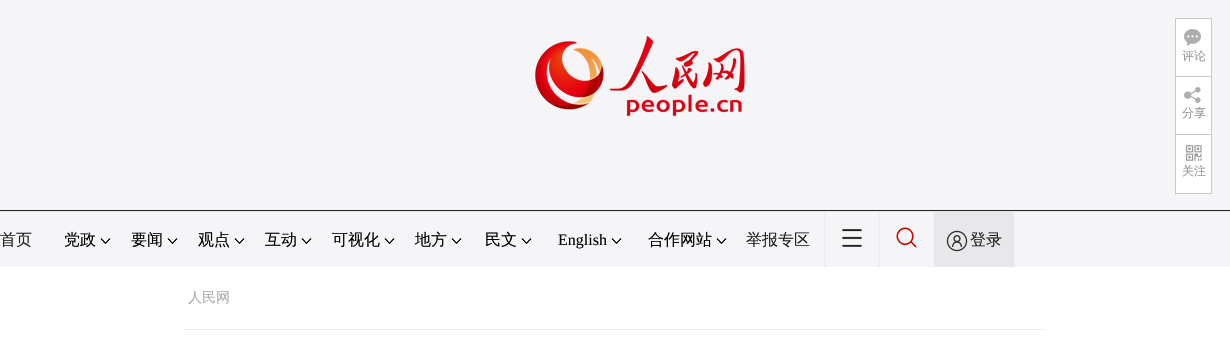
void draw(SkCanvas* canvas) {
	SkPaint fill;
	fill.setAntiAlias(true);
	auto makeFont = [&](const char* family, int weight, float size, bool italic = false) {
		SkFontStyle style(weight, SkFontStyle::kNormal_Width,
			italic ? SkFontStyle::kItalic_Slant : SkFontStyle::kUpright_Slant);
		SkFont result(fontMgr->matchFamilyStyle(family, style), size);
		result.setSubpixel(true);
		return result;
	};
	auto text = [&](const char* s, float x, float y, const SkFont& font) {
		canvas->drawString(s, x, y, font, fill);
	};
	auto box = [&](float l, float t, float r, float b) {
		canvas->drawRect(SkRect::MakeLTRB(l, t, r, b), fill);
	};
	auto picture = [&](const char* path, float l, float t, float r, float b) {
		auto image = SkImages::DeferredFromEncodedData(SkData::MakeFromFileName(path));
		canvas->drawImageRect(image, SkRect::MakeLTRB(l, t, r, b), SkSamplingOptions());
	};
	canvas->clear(0xFFFFFFFF);
	fill.setColor(0xFFF5F5F7);
	box(0, 0, 1230, 210);
	fill.setColor(0xFF212121);
	box(0, 210, 1230, 211);
	picture("image0.png", 535, 36, 745, 116);
	fill.setColor(0xFFFFFFFF);
	box(1176, 19, 1211, 76);
	fill.setStyle(SkPaint::kStroke_Style);
	fill.setStrokeWidth(1);
	fill.setColor(0xFFC9C9C9);
	canvas->drawRect(SkRect::MakeLTRB(1175.5f, 18.5f, 1211.5f, 78.5f), fill);
	picture("image1.png", 1184, 29, 1201, 46);
	fill.setStyle(SkPaint::kFill_Style);
	fill.setColor(0xFFFFFFFF);
	box(1176, 77, 1211, 134);
	fill.setStyle(SkPaint::kStroke_Style);
	fill.setColor(0xFFC9C9C9);
	canvas->drawRect(SkRect::MakeLTRB(1175.5f, 76.5f, 1211.5f, 135.5f), fill);
	picture("image2.png", 1184, 87, 1201, 103);
	fill.setStyle(SkPaint::kFill_Style);
	fill.setColor(0xFFFFFFFF);
	canvas->drawRect(SkRect::MakeLTRB(1175.5f, 134.5f, 1211.5f, 193.5f), fill);
	fill.setStyle(SkPaint::kStroke_Style);
	fill.setColor(0xFFC9C9C9);
	canvas->drawRect(SkRect::MakeLTRB(1175.5f, 134.5f, 1211.5f, 193.5f), fill);
	picture("image3.png", 1186, 145, 1202, 161);
	fill.setStyle(SkPaint::kFill_Style);
	fill.setColor(0xFFE9E9E9);
	box(0, 211, 1230, 212);
	fill.setColor(0xFFF5F5F7);
	box(0, 212, 1230, 267);
	picture("image4.png", 100, 238, 111, 244);
	picture("image4.png", 167, 238, 178, 244);
	picture("image4.png", 234, 238, 245, 244);
	picture("image4.png", 301, 238, 312, 244);
	picture("image4.png", 384, 238, 395, 244);
	picture("image4.png", 451, 238, 462, 244);
	picture("image4.png", 521, 238, 532, 244);
	picture("image4.png", 611, 238, 622, 244);
	picture("image4.png", 716, 238, 727, 244);
	fill.setColor(0xFFEBEBED);
	box(879, 212, 880, 267);
	box(824, 212, 825, 267);
	picture("image5.png", 842, 229, 862, 247);
	picture("image6.png", 896, 227, 918, 249);
	fill.setColor(0xFFE8E8EA);
	box(934, 212, 1014, 267);
	picture("image7.png", 946, 230, 968, 252);
	fill.setColor(0xFFECECEC);
	box(185, 329, 1045, 330);
	auto font1 = makeFont("WenQuanYi Zen Hei", 500, 12);
	fill.setColor(0xFF999999);
	text("评论", 1182, 60, font1);
	text("分享", 1182, 117, font1);
	text("关注", 1182, 175, font1);
	auto font2 = makeFont("WenQuanYi Zen Hei", 500, 16);
	fill.setColor(0xFF212121);
	text("首页", 0, 245, font2);
	fill.setColor(0xFF000000);
	text("党政", 64, 245, font2);
	text("要闻", 131, 245, font2);
	text("观点", 198, 245, font2);
	text("互动", 265, 245, font2);
	text("可视化", 332, 245, font2);
	text("地方", 415, 245, font2);
	text("民文", 485, 245, font2);
	auto font3 = makeFont("Liberation Serif", 400, 16);
	text("English", 558, 245, font3);
	text("合作网站", 648, 245, font2);
	fill.setColor(0xFF212121);
	text("举报专区", 746, 245, font2);
	text("登录", 970, 245, font2);
	auto font4 = makeFont("WenQuanYi Zen Hei", 500, 14);
	fill.setColor(0xFFADADAD);
	text("人民网", 188, 302, font4);
}
